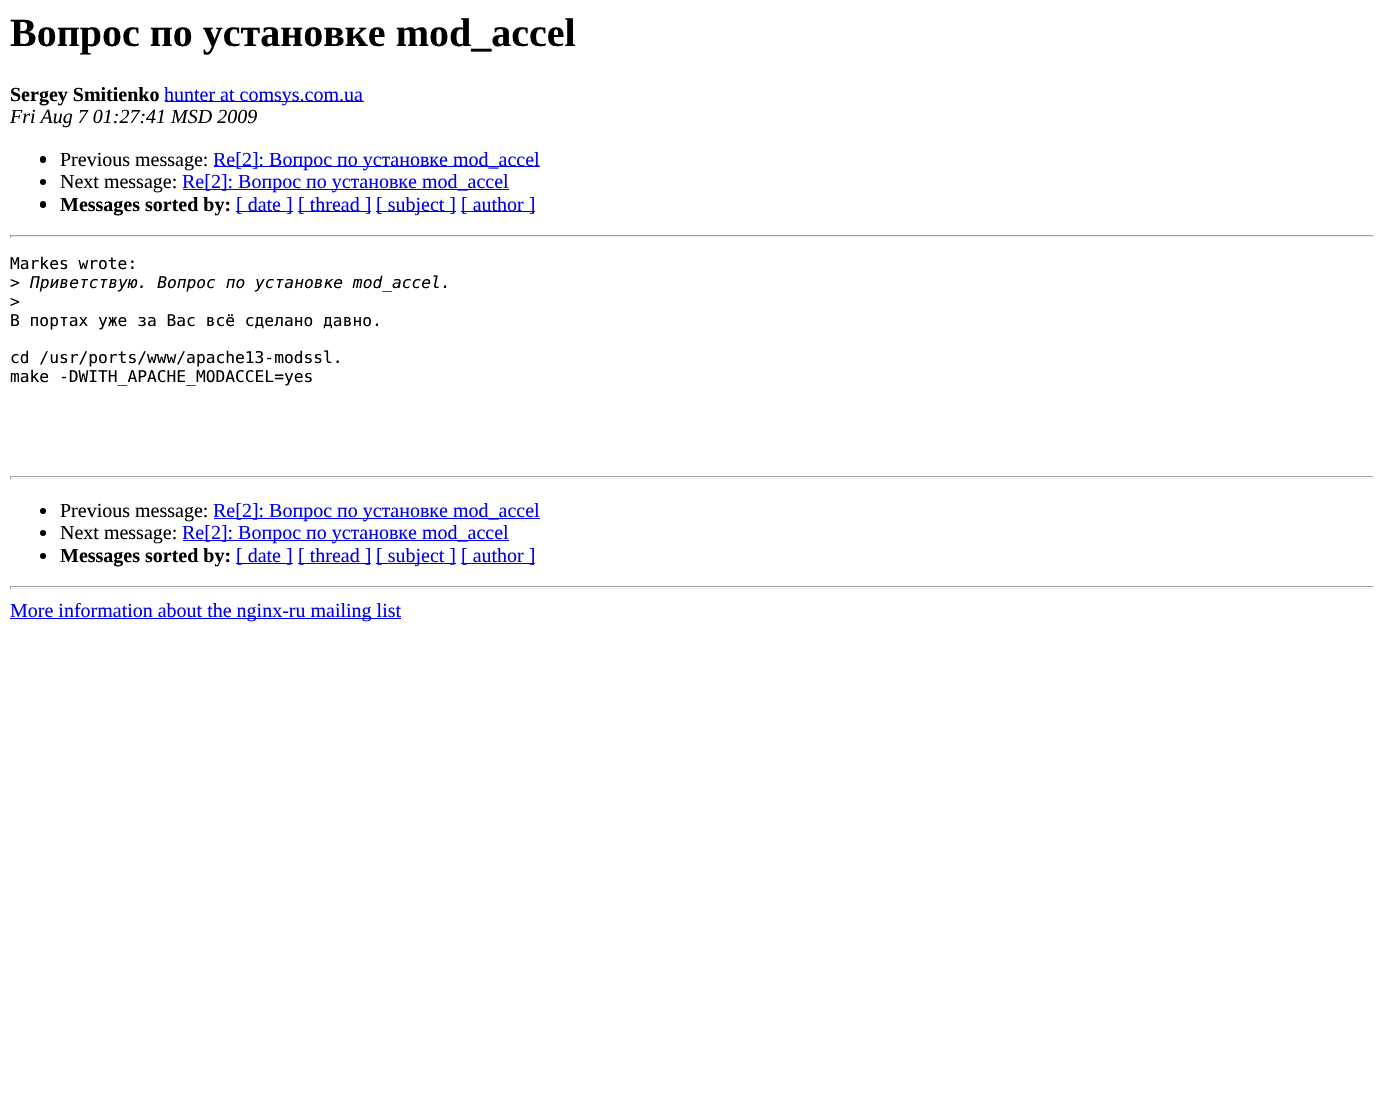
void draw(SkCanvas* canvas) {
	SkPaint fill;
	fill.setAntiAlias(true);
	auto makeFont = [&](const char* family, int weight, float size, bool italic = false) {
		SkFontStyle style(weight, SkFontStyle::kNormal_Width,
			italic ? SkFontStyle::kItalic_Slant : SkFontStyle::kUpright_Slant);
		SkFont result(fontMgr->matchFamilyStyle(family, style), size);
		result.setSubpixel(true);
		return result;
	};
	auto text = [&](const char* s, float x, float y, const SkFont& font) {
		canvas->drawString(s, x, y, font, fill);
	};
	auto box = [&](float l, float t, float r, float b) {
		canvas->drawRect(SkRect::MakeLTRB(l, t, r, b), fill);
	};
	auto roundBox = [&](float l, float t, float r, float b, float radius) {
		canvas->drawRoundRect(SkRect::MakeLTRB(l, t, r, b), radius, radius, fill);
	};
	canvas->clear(0xFFFFFFFF);
	fill.setColor(0xFF0000EE);
	box(165, 101, 364, 102);
	fill.setColor(0xFF000000);
	roundBox(40, 156, 46, 163, 3);
	fill.setColor(0xFF0000EE);
	box(214, 166, 540, 167);
	fill.setColor(0xFF000000);
	canvas->drawCircle(43, 182, 3, fill);
	fill.setColor(0xFF0000EE);
	box(183, 189, 509, 190);
	fill.setColor(0xFF000000);
	roundBox(40, 201, 46, 208, 3);
	fill.setColor(0xFF0000EE);
	box(236, 211, 293, 212);
	box(298, 211, 371, 212);
	box(376, 211, 456, 212);
	box(461, 211, 535, 212);
	fill.setColor(0xFF9F9F9F);
	box(10, 235, 1374, 236);
	fill.setColor(0xFFEEEEEE);
	box(1373, 235, 1374, 238);
	box(10, 236, 1374, 237);
	fill.setColor(0xFF9F9F9F);
	box(10, 235, 11, 238);
	box(10, 476, 1374, 477);
	fill.setColor(0xFFEEEEEE);
	box(1373, 476, 1374, 479);
	box(10, 478, 1374, 479);
	fill.setColor(0xFF9F9F9F);
	box(10, 476, 11, 479);
	fill.setColor(0xFF000000);
	canvas->drawCircle(43, 511, 3, fill);
	fill.setColor(0xFF0000EE);
	box(214, 518, 540, 519);
	fill.setColor(0xFF000000);
	canvas->drawCircle(43, 533, 3, fill);
	fill.setColor(0xFF0000EE);
	box(183, 540, 509, 541);
	fill.setColor(0xFF000000);
	canvas->drawCircle(43, 556, 3, fill);
	fill.setColor(0xFF0000EE);
	box(236, 563, 293, 564);
	box(298, 563, 371, 564);
	box(376, 563, 456, 564);
	box(461, 563, 535, 564);
	fill.setColor(0xFF9F9F9F);
	box(10, 586, 1374, 587);
	fill.setColor(0xFFEEEEEE);
	box(1373, 586, 1374, 589);
	box(10, 588, 1374, 589);
	fill.setColor(0xFF9F9F9F);
	box(10, 586, 11, 589);
	fill.setColor(0xFF0000EE);
	box(10, 618, 401, 619);
	auto font1 = makeFont("Liberation Serif", 700, 40);
	fill.setColor(0xFF000000);
	text("Вопрос по установке mod_accel", 10, 46, font1);
	auto font2 = makeFont("Liberation Serif", 700, 20);
	text("Sergey Smitienko", 10, 101, font2);
	auto font3 = makeFont("Liberation Serif", 400, 20);
	fill.setColor(0xFF0000EE);
	text("hunter at comsys.com.ua", 164, 101, font3);
	auto font4 = makeFont("Liberation Serif", 400, 20, true);
	fill.setColor(0xFF000000);
	text("Fri Aug 7 01:27:41 MSD 2009", 10, 123, font4);
	text("Previous message:", 60, 166, font3);
	fill.setColor(0xFF0000EE);
	text("Re[2]: Вопрос по установке mod_accel", 213, 166, font3);
	fill.setColor(0xFF000000);
	text("Next message:", 60, 188, font3);
	fill.setColor(0xFF0000EE);
	text("Re[2]: Вопрос по установке mod_accel", 182, 188, font3);
	fill.setColor(0xFF000000);
	text("Messages sorted by:", 60, 211, font2);
	fill.setColor(0xFF0000EE);
	text("[ date ]", 236, 211, font3);
	text("[ thread ]", 298, 211, font3);
	text("[ subject ]", 376, 211, font3);
	text("[ author ]", 461, 211, font3);
	auto font5 = makeFont("DejaVu Sans Mono", 400, 16.25f);
	fill.setColor(0xFF000000);
	text("Markes wrote:", 10, 269, font5);
	text(">", 10, 288, font5);
	auto font6 = makeFont("DejaVu Sans Mono", 400, 16.25f, true);
	text("Приветствую. Вопрос по установке mod_accel.", 30, 288, font6);
	text(">", 10, 307, font5);
	text("В портах уже за Вас всё сделано давно.", 10, 326, font5);
	text("cd /usr/ports/www/apache13-modssl.", 10, 363, font5);
	text("make -DWITH_APACHE_MODACCEL=yes", 10, 382, font5);
	text("Previous message:", 60, 517, font3);
	fill.setColor(0xFF0000EE);
	text("Re[2]: Вопрос по установке mod_accel", 213, 517, font3);
	fill.setColor(0xFF000000);
	text("Next message:", 60, 539, font3);
	fill.setColor(0xFF0000EE);
	text("Re[2]: Вопрос по установке mod_accel", 182, 539, font3);
	fill.setColor(0xFF000000);
	text("Messages sorted by:", 60, 562, font2);
	fill.setColor(0xFF0000EE);
	text("[ date ]", 236, 562, font3);
	text("[ thread ]", 298, 562, font3);
	text("[ subject ]", 376, 562, font3);
	text("[ author ]", 461, 562, font3);
	text("More information about the nginx-ru mailing list", 10, 617, font3);
}
